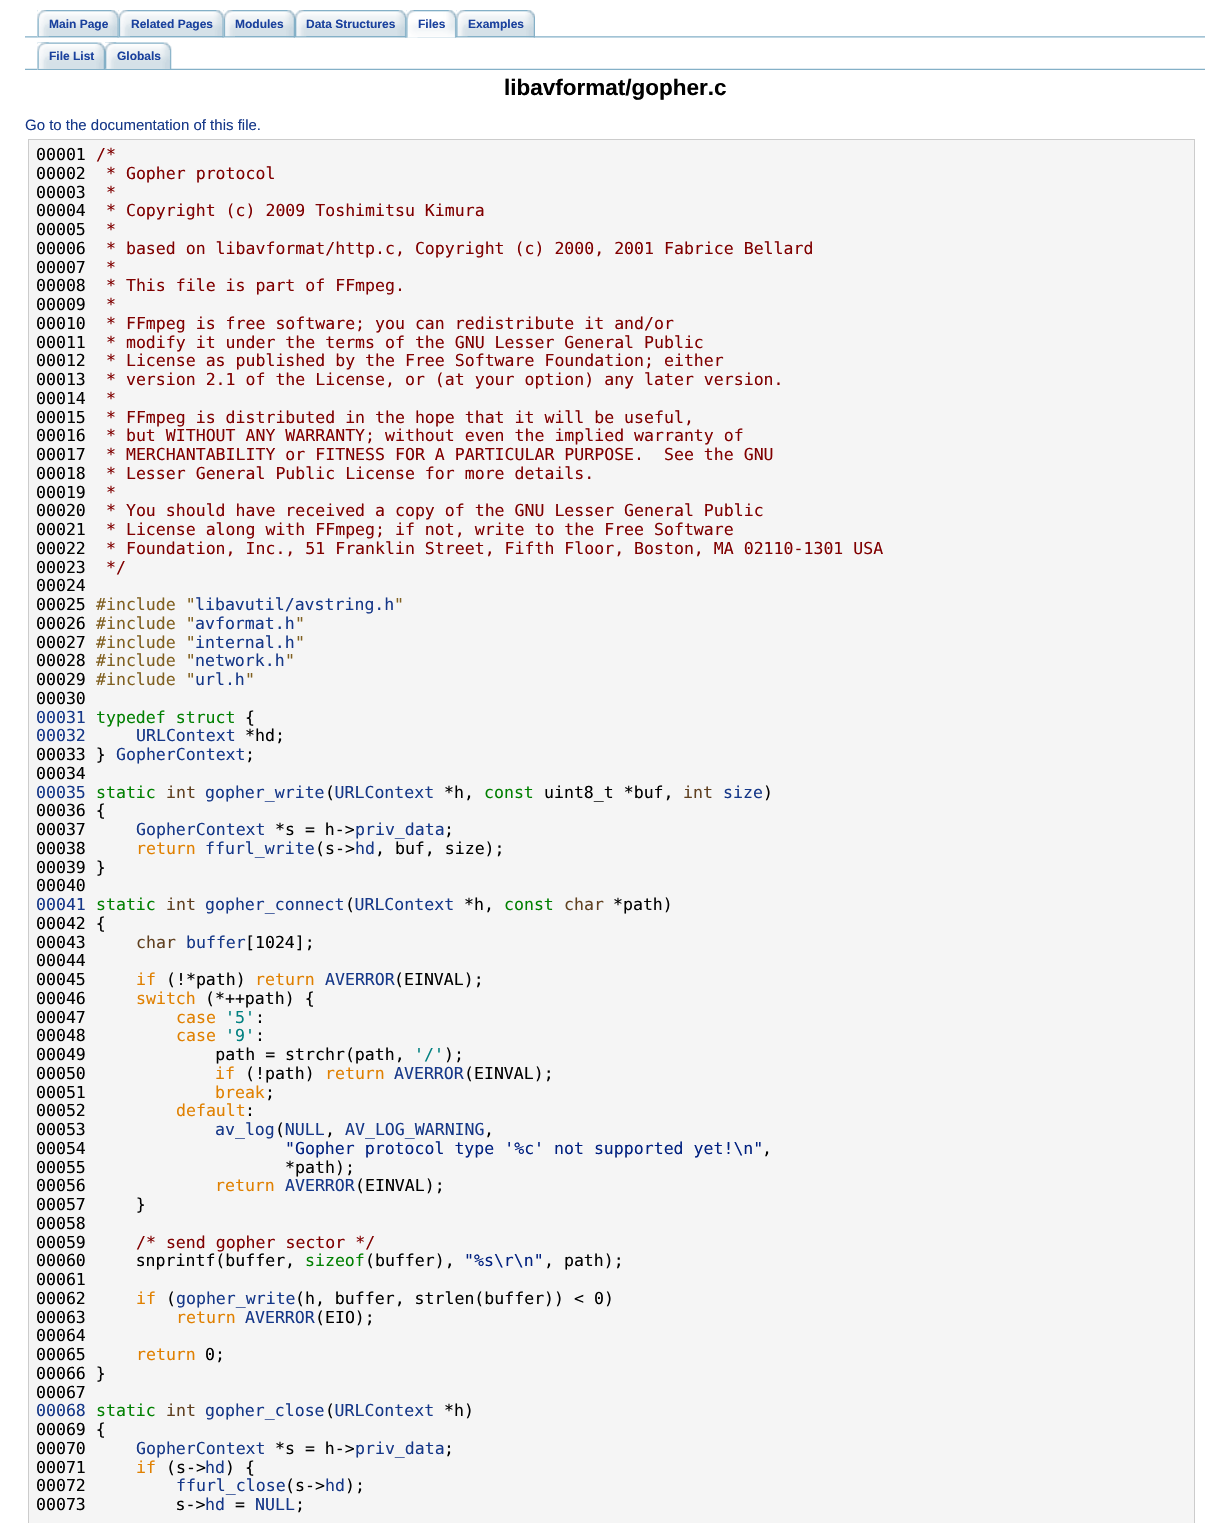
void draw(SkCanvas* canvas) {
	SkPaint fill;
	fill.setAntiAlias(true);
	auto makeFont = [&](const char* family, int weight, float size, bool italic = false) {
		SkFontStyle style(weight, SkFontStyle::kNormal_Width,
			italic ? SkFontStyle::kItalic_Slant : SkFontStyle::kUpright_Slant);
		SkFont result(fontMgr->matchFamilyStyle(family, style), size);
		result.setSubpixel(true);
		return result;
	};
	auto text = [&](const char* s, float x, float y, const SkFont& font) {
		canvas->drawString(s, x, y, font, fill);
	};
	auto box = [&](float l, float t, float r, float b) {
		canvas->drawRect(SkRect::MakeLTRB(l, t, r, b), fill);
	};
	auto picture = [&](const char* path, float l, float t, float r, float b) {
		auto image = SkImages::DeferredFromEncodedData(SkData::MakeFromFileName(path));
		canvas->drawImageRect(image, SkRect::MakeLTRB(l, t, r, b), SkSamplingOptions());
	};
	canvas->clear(0xFFFFFFFF);
	picture("image0.png", 25, 36, 1205, 38);
	picture("image1.png", 37, 10, 119, 38);
	fill.setColor(0xFF84B0C7);
	box(38, 36, 119, 37);
	picture("image2.png", 37, 10, 49, 37);
	picture("image3.png", 118, 10, 224, 38);
	box(119, 36, 224, 37);
	picture("image4.png", 118, 10, 130, 37);
	picture("image5.png", 223, 10, 295, 38);
	box(224, 36, 295, 37);
	picture("image6.png", 223, 10, 235, 37);
	picture("image7.png", 295, 10, 407, 38);
	box(295, 36, 406, 37);
	picture("image8.png", 295, 10, 307, 37);
	picture("image9.png", 406, 10, 457, 38);
	picture("image10.png", 406, 10, 418, 38);
	picture("image11.png", 456, 10, 535, 38);
	box(456, 36, 535, 37);
	picture("image12.png", 456, 10, 468, 37);
	picture("image13.png", 25, 68, 1205, 70);
	picture("image14.png", 37, 42, 105, 70);
	box(38, 69, 105, 70);
	picture("image15.png", 37, 42, 49, 69);
	picture("image16.png", 105, 42, 172, 70);
	box(105, 69, 171, 70);
	picture("image17.png", 105, 42, 117, 69);
	fill.setColor(0xFFF5F5F5);
	canvas->drawRect(SkRect::MakeLTRB(28.5f, 139.5f, 1194.5f, 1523.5f), fill);
	fill.setStyle(SkPaint::kStroke_Style);
	fill.setStrokeWidth(1);
	fill.setColor(0xFFCCCCCC);
	canvas->drawRect(SkRect::MakeLTRB(28.5f, 139.5f, 1194.5f, 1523.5f), fill);
	auto font1 = makeFont("Liberation Sans", 700, 12);
	fill.setStyle(SkPaint::kFill_Style);
	fill.setColor(0xFF1A419D);
	text("Main Page", 49, 28, font1);
	text("Related Pages", 131, 28, font1);
	text("Modules", 235, 28, font1);
	text("Data Structures", 306, 28, font1);
	text("Files", 418, 28, font1);
	text("Examples", 468, 28, font1);
	text("File List", 49, 60, font1);
	text("Globals", 117, 60, font1);
	auto font2 = makeFont("Liberation Sans", 700, 22.5f);
	fill.setColor(0xFF000000);
	text("libavformat/gopher.c", 504, 95, font2);
	auto font3 = makeFont("Liberation Sans", 400, 15);
	fill.setColor(0xFF153788);
	text("Go to the documentation of this file.", 25, 130, font3);
	auto font4 = makeFont("DejaVu Sans Mono", 400, 16.55f);
	fill.setColor(0xFF000000);
	text("00001", 36, 160, font4);
	fill.setColor(0xFF800000);
	text("/*", 96, 160, font4);
	fill.setColor(0xFF000000);
	text("00002", 36, 179, font4);
	fill.setColor(0xFF800000);
	text("* Gopher protocol", 106, 179, font4);
	fill.setColor(0xFF000000);
	text("00003", 36, 198, font4);
	fill.setColor(0xFF800000);
	text("*", 106, 198, font4);
	fill.setColor(0xFF000000);
	text("00004", 36, 216, font4);
	fill.setColor(0xFF800000);
	text("* Copyright (c) 2009 Toshimitsu Kimura", 106, 216, font4);
	fill.setColor(0xFF000000);
	text("00005", 36, 235, font4);
	fill.setColor(0xFF800000);
	text("*", 106, 235, font4);
	fill.setColor(0xFF000000);
	text("00006", 36, 254, font4);
	fill.setColor(0xFF800000);
	text("* based on libavformat/http.c, Copyright (c) 2000, 2001 Fabrice Bellard", 106, 254, font4);
	fill.setColor(0xFF000000);
	text("00007", 36, 273, font4);
	fill.setColor(0xFF800000);
	text("*", 106, 273, font4);
	fill.setColor(0xFF000000);
	text("00008", 36, 291, font4);
	fill.setColor(0xFF800000);
	text("* This file is part of FFmpeg.", 106, 291, font4);
	fill.setColor(0xFF000000);
	text("00009", 36, 310, font4);
	fill.setColor(0xFF800000);
	text("*", 106, 310, font4);
	fill.setColor(0xFF000000);
	text("00010", 36, 329, font4);
	fill.setColor(0xFF800000);
	text("* FFmpeg is free software; you can redistribute it and/or", 106, 329, font4);
	fill.setColor(0xFF000000);
	text("00011", 36, 348, font4);
	fill.setColor(0xFF800000);
	text("* modify it under the terms of the GNU Lesser General Public", 106, 348, font4);
	fill.setColor(0xFF000000);
	text("00012", 36, 366, font4);
	fill.setColor(0xFF800000);
	text("* License as published by the Free Software Foundation; either", 106, 366, font4);
	fill.setColor(0xFF000000);
	text("00013", 36, 385, font4);
	fill.setColor(0xFF800000);
	text("* version 2.1 of the License, or (at your option) any later version.", 106, 385, font4);
	fill.setColor(0xFF000000);
	text("00014", 36, 404, font4);
	fill.setColor(0xFF800000);
	text("*", 106, 404, font4);
	fill.setColor(0xFF000000);
	text("00015", 36, 423, font4);
	fill.setColor(0xFF800000);
	text("* FFmpeg is distributed in the hope that it will be useful,", 106, 423, font4);
	fill.setColor(0xFF000000);
	text("00016", 36, 441, font4);
	fill.setColor(0xFF800000);
	text("* but WITHOUT ANY WARRANTY; without even the implied warranty of", 106, 441, font4);
	fill.setColor(0xFF000000);
	text("00017", 36, 460, font4);
	fill.setColor(0xFF800000);
	text("* MERCHANTABILITY or FITNESS FOR A PARTICULAR PURPOSE.  See the GNU", 106, 460, font4);
	fill.setColor(0xFF000000);
	text("00018", 36, 479, font4);
	fill.setColor(0xFF800000);
	text("* Lesser General Public License for more details.", 106, 479, font4);
	fill.setColor(0xFF000000);
	text("00019", 36, 498, font4);
	fill.setColor(0xFF800000);
	text("*", 106, 498, font4);
	fill.setColor(0xFF000000);
	text("00020", 36, 516, font4);
	fill.setColor(0xFF800000);
	text("* You should have received a copy of the GNU Lesser General Public", 106, 516, font4);
	fill.setColor(0xFF000000);
	text("00021", 36, 535, font4);
	fill.setColor(0xFF800000);
	text("* License along with FFmpeg; if not, write to the Free Software", 106, 535, font4);
	fill.setColor(0xFF000000);
	text("00022", 36, 554, font4);
	fill.setColor(0xFF800000);
	text("* Foundation, Inc., 51 Franklin Street, Fifth Floor, Boston, MA 02110-1301 USA", 106, 554, font4);
	fill.setColor(0xFF000000);
	text("00023", 36, 573, font4);
	fill.setColor(0xFF800000);
	text("*/", 106, 573, font4);
	fill.setColor(0xFF000000);
	text("00024", 36, 591, font4);
	text("00025", 36, 610, font4);
	fill.setColor(0xFF806020);
	text("#include \"", 96, 610, font4);
	fill.setColor(0xFF153788);
	text("libavutil/avstring.h", 195, 610, font4);
	fill.setColor(0xFF806020);
	text("\"", 394, 610, font4);
	fill.setColor(0xFF000000);
	text("00026", 36, 629, font4);
	fill.setColor(0xFF806020);
	text("#include \"", 96, 629, font4);
	fill.setColor(0xFF153788);
	text("avformat.h", 195, 629, font4);
	fill.setColor(0xFF806020);
	text("\"", 295, 629, font4);
	fill.setColor(0xFF000000);
	text("00027", 36, 648, font4);
	fill.setColor(0xFF806020);
	text("#include \"", 96, 648, font4);
	fill.setColor(0xFF153788);
	text("internal.h", 195, 648, font4);
	fill.setColor(0xFF806020);
	text("\"", 295, 648, font4);
	fill.setColor(0xFF000000);
	text("00028", 36, 666, font4);
	fill.setColor(0xFF806020);
	text("#include \"", 96, 666, font4);
	fill.setColor(0xFF153788);
	text("network.h", 195, 666, font4);
	fill.setColor(0xFF806020);
	text("\"", 285, 666, font4);
	fill.setColor(0xFF000000);
	text("00029", 36, 685, font4);
	fill.setColor(0xFF806020);
	text("#include \"", 96, 685, font4);
	fill.setColor(0xFF153788);
	text("url.h", 195, 685, font4);
	fill.setColor(0xFF806020);
	text("\"", 245, 685, font4);
	fill.setColor(0xFF000000);
	text("00030", 36, 704, font4);
	fill.setColor(0xFF153788);
	text("00031", 36, 723, font4);
	fill.setColor(0xFF008000);
	text("typedef struct", 96, 723, font4);
	fill.setColor(0xFF000000);
	text("{", 245, 723, font4);
	fill.setColor(0xFF153788);
	text("00032", 36, 741, font4);
	text("URLContext", 136, 741, font4);
	fill.setColor(0xFF000000);
	text("*hd;", 245, 741, font4);
	text("00033 }", 36, 760, font4);
	fill.setColor(0xFF153788);
	text("GopherContext", 116, 760, font4);
	fill.setColor(0xFF000000);
	text(";", 245, 760, font4);
	text("00034", 36, 779, font4);
	fill.setColor(0xFF153788);
	text("00035", 36, 798, font4);
	fill.setColor(0xFF008000);
	text("static", 96, 798, font4);
	fill.setColor(0xFF604020);
	text("int", 166, 798, font4);
	fill.setColor(0xFF153788);
	text("gopher_write URLContext", 205, 798, font4);
	fill.setColor(0xFF000000);
	text("(", 325, 798, font4);
	text("*h,", 444, 798, font4);
	fill.setColor(0xFF008000);
	text("const", 484, 798, font4);
	fill.setColor(0xFF000000);
	text("uint8_t *buf,", 544, 798, font4);
	fill.setColor(0xFF604020);
	text("int", 683, 798, font4);
	fill.setColor(0xFF153788);
	text("size", 723, 798, font4);
	fill.setColor(0xFF000000);
	text(")", 763, 798, font4);
	text("00036 {", 36, 816, font4);
	text("00037", 36, 835, font4);
	fill.setColor(0xFF153788);
	text("GopherContext", 136, 835, font4);
	fill.setColor(0xFF000000);
	text("*s = h->", 275, 835, font4);
	fill.setColor(0xFF153788);
	text("priv_data", 355, 835, font4);
	fill.setColor(0xFF000000);
	text(";", 444, 835, font4);
	text("00038", 36, 854, font4);
	fill.setColor(0xFFE08000);
	text("return", 136, 854, font4);
	fill.setColor(0xFF153788);
	text("ffurl_write", 205, 854, font4);
	fill.setColor(0xFF000000);
	text("(s->", 315, 854, font4);
	fill.setColor(0xFF153788);
	text("hd", 355, 854, font4);
	fill.setColor(0xFF000000);
	text(", buf, size);", 375, 854, font4);
	text("00039 }", 36, 873, font4);
	text("00040", 36, 891, font4);
	fill.setColor(0xFF153788);
	text("00041", 36, 910, font4);
	fill.setColor(0xFF008000);
	text("static", 96, 910, font4);
	fill.setColor(0xFF604020);
	text("int", 166, 910, font4);
	fill.setColor(0xFF153788);
	text("gopher_connect URLContext", 205, 910, font4);
	fill.setColor(0xFF000000);
	text("(", 345, 910, font4);
	text("*h,", 464, 910, font4);
	fill.setColor(0xFF008000);
	text("const", 504, 910, font4);
	fill.setColor(0xFF604020);
	text("char", 564, 910, font4);
	fill.setColor(0xFF000000);
	text("*path)", 613, 910, font4);
	text("00042 {", 36, 929, font4);
	text("00043", 36, 948, font4);
	fill.setColor(0xFF604020);
	text("char", 136, 948, font4);
	fill.setColor(0xFF153788);
	text("buffer", 186, 948, font4);
	fill.setColor(0xFF000000);
	text("[1024];", 245, 948, font4);
	text("00044", 36, 966, font4);
	text("00045", 36, 985, font4);
	fill.setColor(0xFFE08000);
	text("if", 136, 985, font4);
	fill.setColor(0xFF000000);
	text("(!*path)", 166, 985, font4);
	fill.setColor(0xFFE08000);
	text("return", 255, 985, font4);
	fill.setColor(0xFF153788);
	text("AVERROR", 325, 985, font4);
	fill.setColor(0xFF000000);
	text("(EINVAL);", 394, 985, font4);
	text("00046", 36, 1004, font4);
	fill.setColor(0xFFE08000);
	text("switch", 136, 1004, font4);
	fill.setColor(0xFF000000);
	text("(*++path) {", 205, 1004, font4);
	text("00047", 36, 1023, font4);
	fill.setColor(0xFFE08000);
	text("case", 176, 1023, font4);
	fill.setColor(0xFF008080);
	text("'5'", 225, 1023, font4);
	fill.setColor(0xFF000000);
	text(":", 255, 1023, font4);
	text("00048", 36, 1041, font4);
	fill.setColor(0xFFE08000);
	text("case", 176, 1041, font4);
	fill.setColor(0xFF008080);
	text("'9'", 225, 1041, font4);
	fill.setColor(0xFF000000);
	text(":", 255, 1041, font4);
	text("00049             path = strchr(path,", 36, 1060, font4);
	fill.setColor(0xFF008080);
	text("'/'", 414, 1060, font4);
	fill.setColor(0xFF000000);
	text(");", 444, 1060, font4);
	text("00050", 36, 1079, font4);
	fill.setColor(0xFFE08000);
	text("if", 215, 1079, font4);
	fill.setColor(0xFF000000);
	text("(!path)", 245, 1079, font4);
	fill.setColor(0xFFE08000);
	text("return", 325, 1079, font4);
	fill.setColor(0xFF153788);
	text("AVERROR", 394, 1079, font4);
	fill.setColor(0xFF000000);
	text("(EINVAL);", 464, 1079, font4);
	text("00051", 36, 1098, font4);
	fill.setColor(0xFFE08000);
	text("break", 215, 1098, font4);
	fill.setColor(0xFF000000);
	text(";", 265, 1098, font4);
	text("00052", 36, 1116, font4);
	fill.setColor(0xFFE08000);
	text("default", 176, 1116, font4);
	fill.setColor(0xFF000000);
	text(":", 245, 1116, font4);
	text("00053", 36, 1135, font4);
	fill.setColor(0xFF153788);
	text("av_log NULL", 215, 1135, font4);
	fill.setColor(0xFF000000);
	text("(", 275, 1135, font4);
	text(",", 325, 1135, font4);
	fill.setColor(0xFF153788);
	text("AV_LOG_WARNING", 345, 1135, font4);
	fill.setColor(0xFF000000);
	text(",", 484, 1135, font4);
	text("00054", 36, 1154, font4);
	fill.setColor(0xFF002080);
	text("\"Gopher protocol type '%c' not supported yet!\\n\"", 285, 1154, font4);
	fill.setColor(0xFF000000);
	text(",", 762, 1154, font4);
	text("00055                    *path);", 36, 1173, font4);
	text("00056", 36, 1191, font4);
	fill.setColor(0xFFE08000);
	text("return", 215, 1191, font4);
	fill.setColor(0xFF153788);
	text("AVERROR", 285, 1191, font4);
	fill.setColor(0xFF000000);
	text("(EINVAL);", 355, 1191, font4);
	text("00057     }", 36, 1210, font4);
	text("00058", 36, 1229, font4);
	text("00059", 36, 1248, font4);
	fill.setColor(0xFF800000);
	text("/* send gopher sector */", 136, 1248, font4);
	fill.setColor(0xFF000000);
	text("00060     snprintf(buffer,", 36, 1266, font4);
	fill.setColor(0xFF008000);
	text("sizeof", 305, 1266, font4);
	fill.setColor(0xFF000000);
	text("(buffer),", 365, 1266, font4);
	fill.setColor(0xFF002080);
	text("\"%s\\r\\n\"", 464, 1266, font4);
	fill.setColor(0xFF000000);
	text(", path);", 544, 1266, font4);
	text("00061", 36, 1285, font4);
	text("00062", 36, 1304, font4);
	fill.setColor(0xFFE08000);
	text("if", 136, 1304, font4);
	fill.setColor(0xFF000000);
	text("(", 166, 1304, font4);
	fill.setColor(0xFF153788);
	text("gopher_write", 176, 1304, font4);
	fill.setColor(0xFF000000);
	text("(h, buffer, strlen(buffer)) < 0)", 295, 1304, font4);
	text("00063", 36, 1323, font4);
	fill.setColor(0xFFE08000);
	text("return", 176, 1323, font4);
	fill.setColor(0xFF153788);
	text("AVERROR", 245, 1323, font4);
	fill.setColor(0xFF000000);
	text("(EIO);", 315, 1323, font4);
	text("00064", 36, 1341, font4);
	text("00065", 36, 1360, font4);
	fill.setColor(0xFFE08000);
	text("return", 136, 1360, font4);
	fill.setColor(0xFF000000);
	text("0;", 205, 1360, font4);
	text("00066 }", 36, 1379, font4);
	text("00067", 36, 1398, font4);
	fill.setColor(0xFF153788);
	text("00068", 36, 1416, font4);
	fill.setColor(0xFF008000);
	text("static", 96, 1416, font4);
	fill.setColor(0xFF604020);
	text("int", 166, 1416, font4);
	fill.setColor(0xFF153788);
	text("gopher_close URLContext", 205, 1416, font4);
	fill.setColor(0xFF000000);
	text("(", 325, 1416, font4);
	text("*h)", 444, 1416, font4);
	text("00069 {", 36, 1435, font4);
	text("00070", 36, 1454, font4);
	fill.setColor(0xFF153788);
	text("GopherContext", 136, 1454, font4);
	fill.setColor(0xFF000000);
	text("*s = h->", 275, 1454, font4);
	fill.setColor(0xFF153788);
	text("priv_data", 355, 1454, font4);
	fill.setColor(0xFF000000);
	text(";", 444, 1454, font4);
	text("00071", 36, 1473, font4);
	fill.setColor(0xFFE08000);
	text("if", 136, 1473, font4);
	fill.setColor(0xFF000000);
	text("(s->", 166, 1473, font4);
	fill.setColor(0xFF153788);
	text("hd", 205, 1473, font4);
	fill.setColor(0xFF000000);
	text(") {", 225, 1473, font4);
	text("00072", 36, 1491, font4);
	fill.setColor(0xFF153788);
	text("ffurl_close", 176, 1491, font4);
	fill.setColor(0xFF000000);
	text("(s->", 285, 1491, font4);
	fill.setColor(0xFF153788);
	text("hd", 325, 1491, font4);
	fill.setColor(0xFF000000);
	text(");", 345, 1491, font4);
	text("00073         s->", 36, 1510, font4);
	fill.setColor(0xFF153788);
	text("hd", 205, 1510, font4);
	fill.setColor(0xFF000000);
	text("=", 235, 1510, font4);
	fill.setColor(0xFF153788);
	text("NULL", 255, 1510, font4);
	fill.setColor(0xFF000000);
	text(";", 295, 1510, font4);
}
